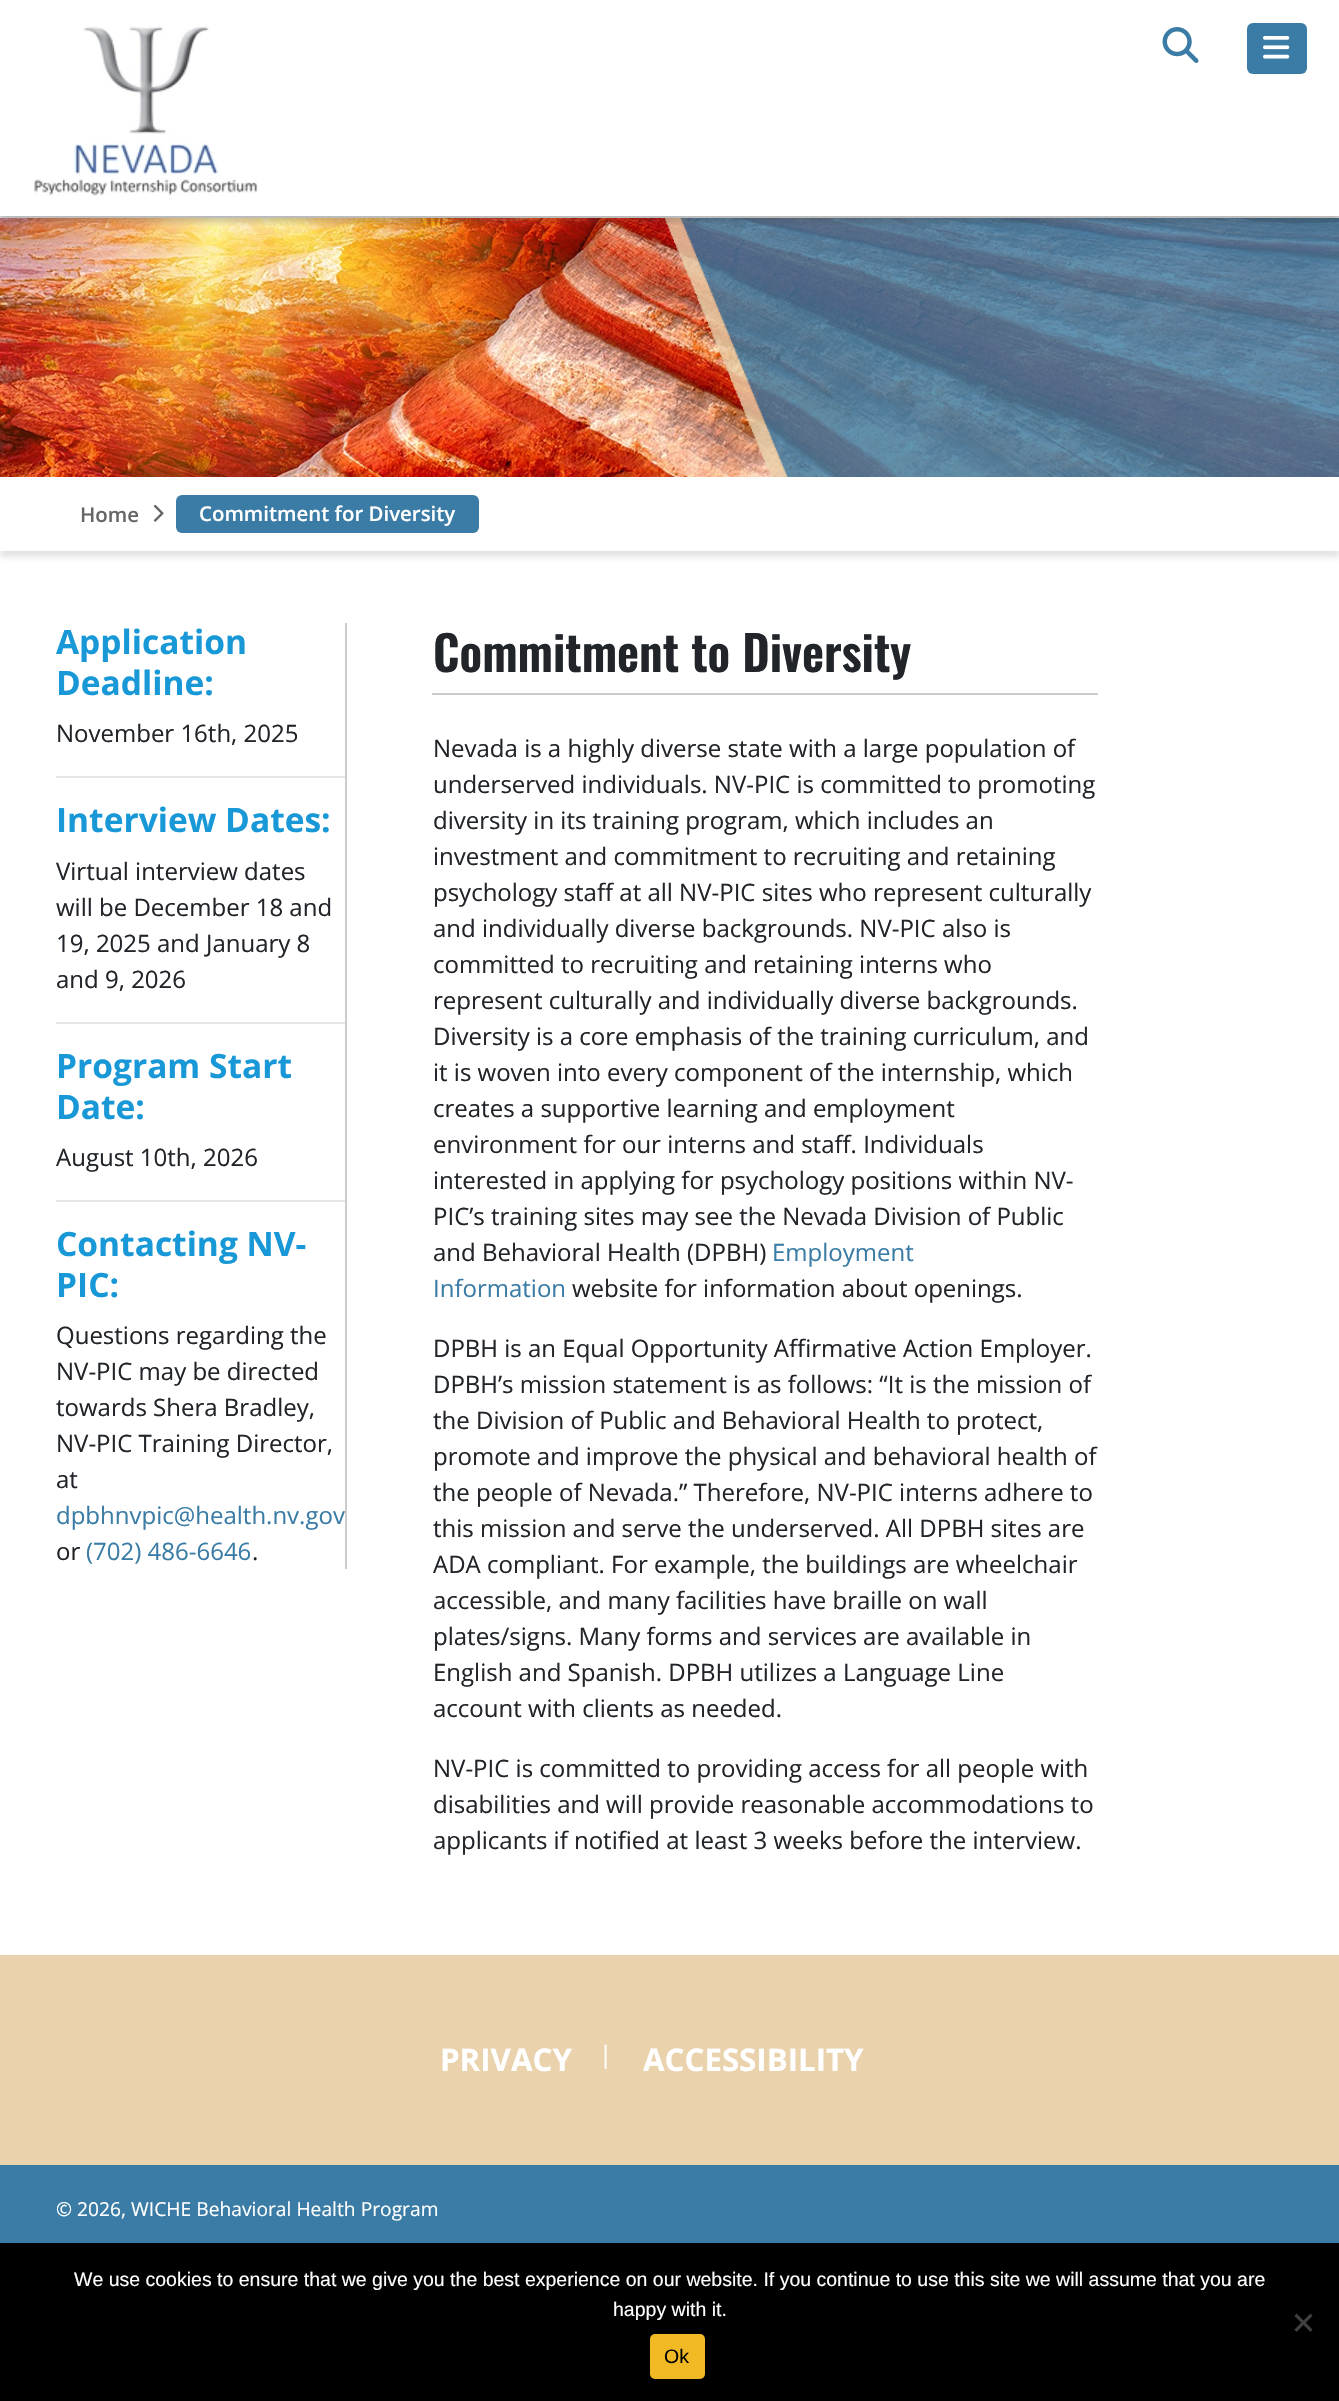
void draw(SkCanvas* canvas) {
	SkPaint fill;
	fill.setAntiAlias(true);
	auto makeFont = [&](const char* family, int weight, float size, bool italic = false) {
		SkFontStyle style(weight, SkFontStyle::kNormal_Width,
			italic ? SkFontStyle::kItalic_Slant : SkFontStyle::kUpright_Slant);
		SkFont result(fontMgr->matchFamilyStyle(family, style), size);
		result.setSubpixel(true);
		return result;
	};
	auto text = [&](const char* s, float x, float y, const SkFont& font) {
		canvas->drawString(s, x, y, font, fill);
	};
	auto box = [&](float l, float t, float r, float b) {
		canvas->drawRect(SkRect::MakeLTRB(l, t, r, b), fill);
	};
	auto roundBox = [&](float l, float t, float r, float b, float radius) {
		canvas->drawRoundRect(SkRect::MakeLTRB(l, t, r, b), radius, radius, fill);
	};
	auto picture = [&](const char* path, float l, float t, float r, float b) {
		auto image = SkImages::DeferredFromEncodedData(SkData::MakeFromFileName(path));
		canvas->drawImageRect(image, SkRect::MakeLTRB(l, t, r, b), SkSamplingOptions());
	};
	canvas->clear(0xFFFFFFFF);
	fill.setColor(0xFFE2E2E2);
	box(0, 216, 1339, 218);
	canvas->save();
	canvas->clipPath(SkPathBuilder(SkPathFillType::kEvenOdd).moveTo(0, 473).lineTo(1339, 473).lineTo(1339, 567).lineTo(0, 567).close().moveTo(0, 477).lineTo(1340, 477).lineTo(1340, 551).lineTo(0, 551).close().detach(), true);
	fill.setColor(0x26404040);
	fill.setMaskFilter(SkMaskFilter::MakeBlur(kNormal_SkBlurStyle, 3));
	canvas->drawRect(SkRect::MakeLTRB(0, 483, 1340, 557), fill);
	fill.setMaskFilter(nullptr);
	canvas->restore();
	picture("image3.png", 0, 218, 1339, 477);
	picture("image4.png", 665, 218, 1339, 477);
	canvas->save();
	canvas->clipRect(SkRect::MakeLTRB(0, 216, 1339, 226));
	fill.setColor(0x40404040);
	fill.setMaskFilter(SkMaskFilter::MakeBlur(kNormal_SkBlurStyle, 3));
	canvas->drawRect(SkRect::MakeLTRB(0, 6, 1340, 222), fill);
	fill.setMaskFilter(nullptr);
	canvas->restore();
	picture("image0.png", 34, 26, 258, 196);
	picture("image1.png", 1162, 27, 1199, 63);
	fill.setColor(0xFF3A7CA5);
	roundBox(1247, 23, 1307, 74, 6);
	picture("image2.png", 1263, 36, 1290, 59);
	picture("image5.png", 153, 504, 164, 522);
	roundBox(176, 495, 479, 533, 6);
	fill.setColor(0xFFCCCCCC);
	box(345, 623, 347, 1569);
	fill.setColor(0xFFE6E6E6);
	box(56, 776, 345, 778);
	box(56, 1022, 345, 1024);
	box(56, 1200, 345, 1202);
	fill.setColor(0xFFCCCCCC);
	box(432, 693, 1098, 695);
	fill.setColor(0xFFEAD2AC);
	box(0, 1955, 1339, 2165);
	fill.setColor(0xFF3A7CA5);
	box(0, 2165, 1339, 2243);
	fill.setColor(0xFF000000);
	box(0, 2243, 1339, 2401);
	fill.setColor(0xFF404040);
	canvas->drawPath(SkPathBuilder().moveTo(1310.5f, 2313.5f).lineTo(1312.5f, 2316).lineTo(1296.5f, 2332).lineTo(1294.5f, 2329.5f).close().detach(), fill);
	canvas->drawPath(SkPathBuilder().moveTo(1294.5f, 2316).lineTo(1296.5f, 2313.5f).lineTo(1312.5f, 2329.5f).lineTo(1310.5f, 2332).close().detach(), fill);
	fill.setColor(0xFFF1B923);
	roundBox(650, 2334, 705, 2379, 5);
	auto font1 = makeFont("Open Sans", 600, 20.4f);
	fill.setColor(0xFF666666);
	text("Home", 80, 522, font1);
	fill.setColor(0xFFFFFFFF);
	text("Commitment for Diversity", 199, 521, font1);
	auto font2 = makeFont("Open Sans", 700, 33.5f);
	fill.setColor(0xFF1898D6);
	text("Application", 56, 654, font2);
	text("Deadline:", 56, 695, font2);
	auto font3 = makeFont("Open Sans", 400, 24);
	fill.setColor(0xFF212529);
	text("November 16th, 2025", 56, 742, font3);
	fill.setColor(0xFF1898D6);
	text("Interview Dates:", 56, 832, font2);
	fill.setColor(0xFF212529);
	text("Virtual interview dates", 56, 880, font3);
	text("will be December 18 and", 56, 916, font3);
	text("19, 2025 and January 8", 56, 952, font3);
	text("and 9, 2026", 56, 988, font3);
	fill.setColor(0xFF1898D6);
	text("Program Start", 56, 1078, font2);
	text("Date:", 56, 1119, font2);
	fill.setColor(0xFF212529);
	text("August 10th, 2026", 56, 1166, font3);
	fill.setColor(0xFF1898D6);
	text("Contacting NV-", 56, 1256, font2);
	text("PIC:", 56, 1297, font2);
	fill.setColor(0xFF212529);
	text("Questions regarding the", 56, 1344, font3);
	text("NV-PIC may be directed", 56, 1380, font3);
	text("towards Shera Bradley,", 56, 1416, font3);
	text("NV-PIC Training Director,", 56, 1452, font3);
	text("at", 56, 1488, font3);
	fill.setColor(0xFF3A7CA5);
	text("dpbhnvpic@health.nv.gov", 56, 1524, font3);
	fill.setColor(0xFF212529);
	text("or", 56, 1560, font3);
	fill.setColor(0xFF3A7CA5);
	text("(702) 486-6646", 86, 1560, font3);
	fill.setColor(0xFF212529);
	text(".", 252, 1560, font3);
	auto font4 = makeFont("Oswald", 600, 48);
	text("Commitment to Diversity", 433, 672, font4);
	text("Nevada is a highly diverse state with a large population of", 433, 757, font3);
	text("underserved individuals. NV-PIC is committed to promoting", 433, 793, font3);
	text("diversity in its training program, which includes an", 433, 829, font3);
	text("investment and commitment to recruiting and retaining", 433, 865, font3);
	text("psychology staff at all NV-PIC sites who represent culturally", 433, 901, font3);
	text("and individually diverse backgrounds. NV-PIC also is", 433, 937, font3);
	text("committed to recruiting and retaining interns who", 433, 973, font3);
	text("represent culturally and individually diverse backgrounds.", 433, 1009, font3);
	text("Diversity is a core emphasis of the training curriculum, and", 433, 1045, font3);
	text("it is woven into every component of the internship, which", 433, 1081, font3);
	text("creates a supportive learning and employment", 433, 1117, font3);
	text("environment for our interns and staff. Individuals", 433, 1153, font3);
	text("interested in applying for psychology positions within NV-", 433, 1189, font3);
	text("PIC’s training sites may see the Nevada Division of Public", 433, 1225, font3);
	text("and Behavioral Health (DPBH)", 433, 1261, font3);
	fill.setColor(0xFF3A7CA5);
	text("Employment", 772, 1261, font3);
	text("Information", 433, 1297, font3);
	fill.setColor(0xFF212529);
	text("website for information about openings.", 572, 1297, font3);
	text("DPBH is an Equal Opportunity Affirmative Action Employer.", 433, 1357, font3);
	text("DPBH’s mission statement is as follows: “It is the mission of", 433, 1393, font3);
	text("the Division of Public and Behavioral Health to protect,", 433, 1429, font3);
	text("promote and improve the physical and behavioral health of", 433, 1465, font3);
	text("the people of Nevada.” Therefore, NV-PIC interns adhere to", 433, 1501, font3);
	text("this mission and serve the underserved. All DPBH sites are", 433, 1537, font3);
	text("ADA compliant. For example, the buildings are wheelchair", 433, 1573, font3);
	text("accessible, and many facilities have braille on wall", 433, 1609, font3);
	text("plates/signs. Many forms and services are available in", 433, 1645, font3);
	text("English and Spanish. DPBH utilizes a Language Line", 433, 1681, font3);
	text("account with clients as needed.", 433, 1717, font3);
	text("NV-PIC is committed to providing access for all people with", 433, 1777, font3);
	text("disabilities and will provide reasonable accommodations to", 433, 1813, font3);
	text("applicants if notified at least 3 weeks before the interview.", 433, 1849, font3);
	auto font5 = makeFont("Open Sans", 700, 31.25f);
	fill.setColor(0xFFFFFFFF);
	text("PRIVACY", 440, 2071, font5);
	text("|", 599, 2063, font3);
	text("ACCESSIBILITY", 643, 2071, font5);
	auto font6 = makeFont("Open Sans", 400, 19.25f);
	text("© 2026, WICHE Behavioral Health Program", 56, 2216, font6);
	auto font7 = makeFont("Liberation Sans", 400, 19.5f);
	text("We use cookies to ensure that we give you the best experience on our website. If you continue to use this site we will assume that you are", 74, 2286, font7);
	text("happy with it.", 613, 2316, font7);
	fill.setColor(0xFF000000);
	text("Ok", 664, 2363, font7);
}
